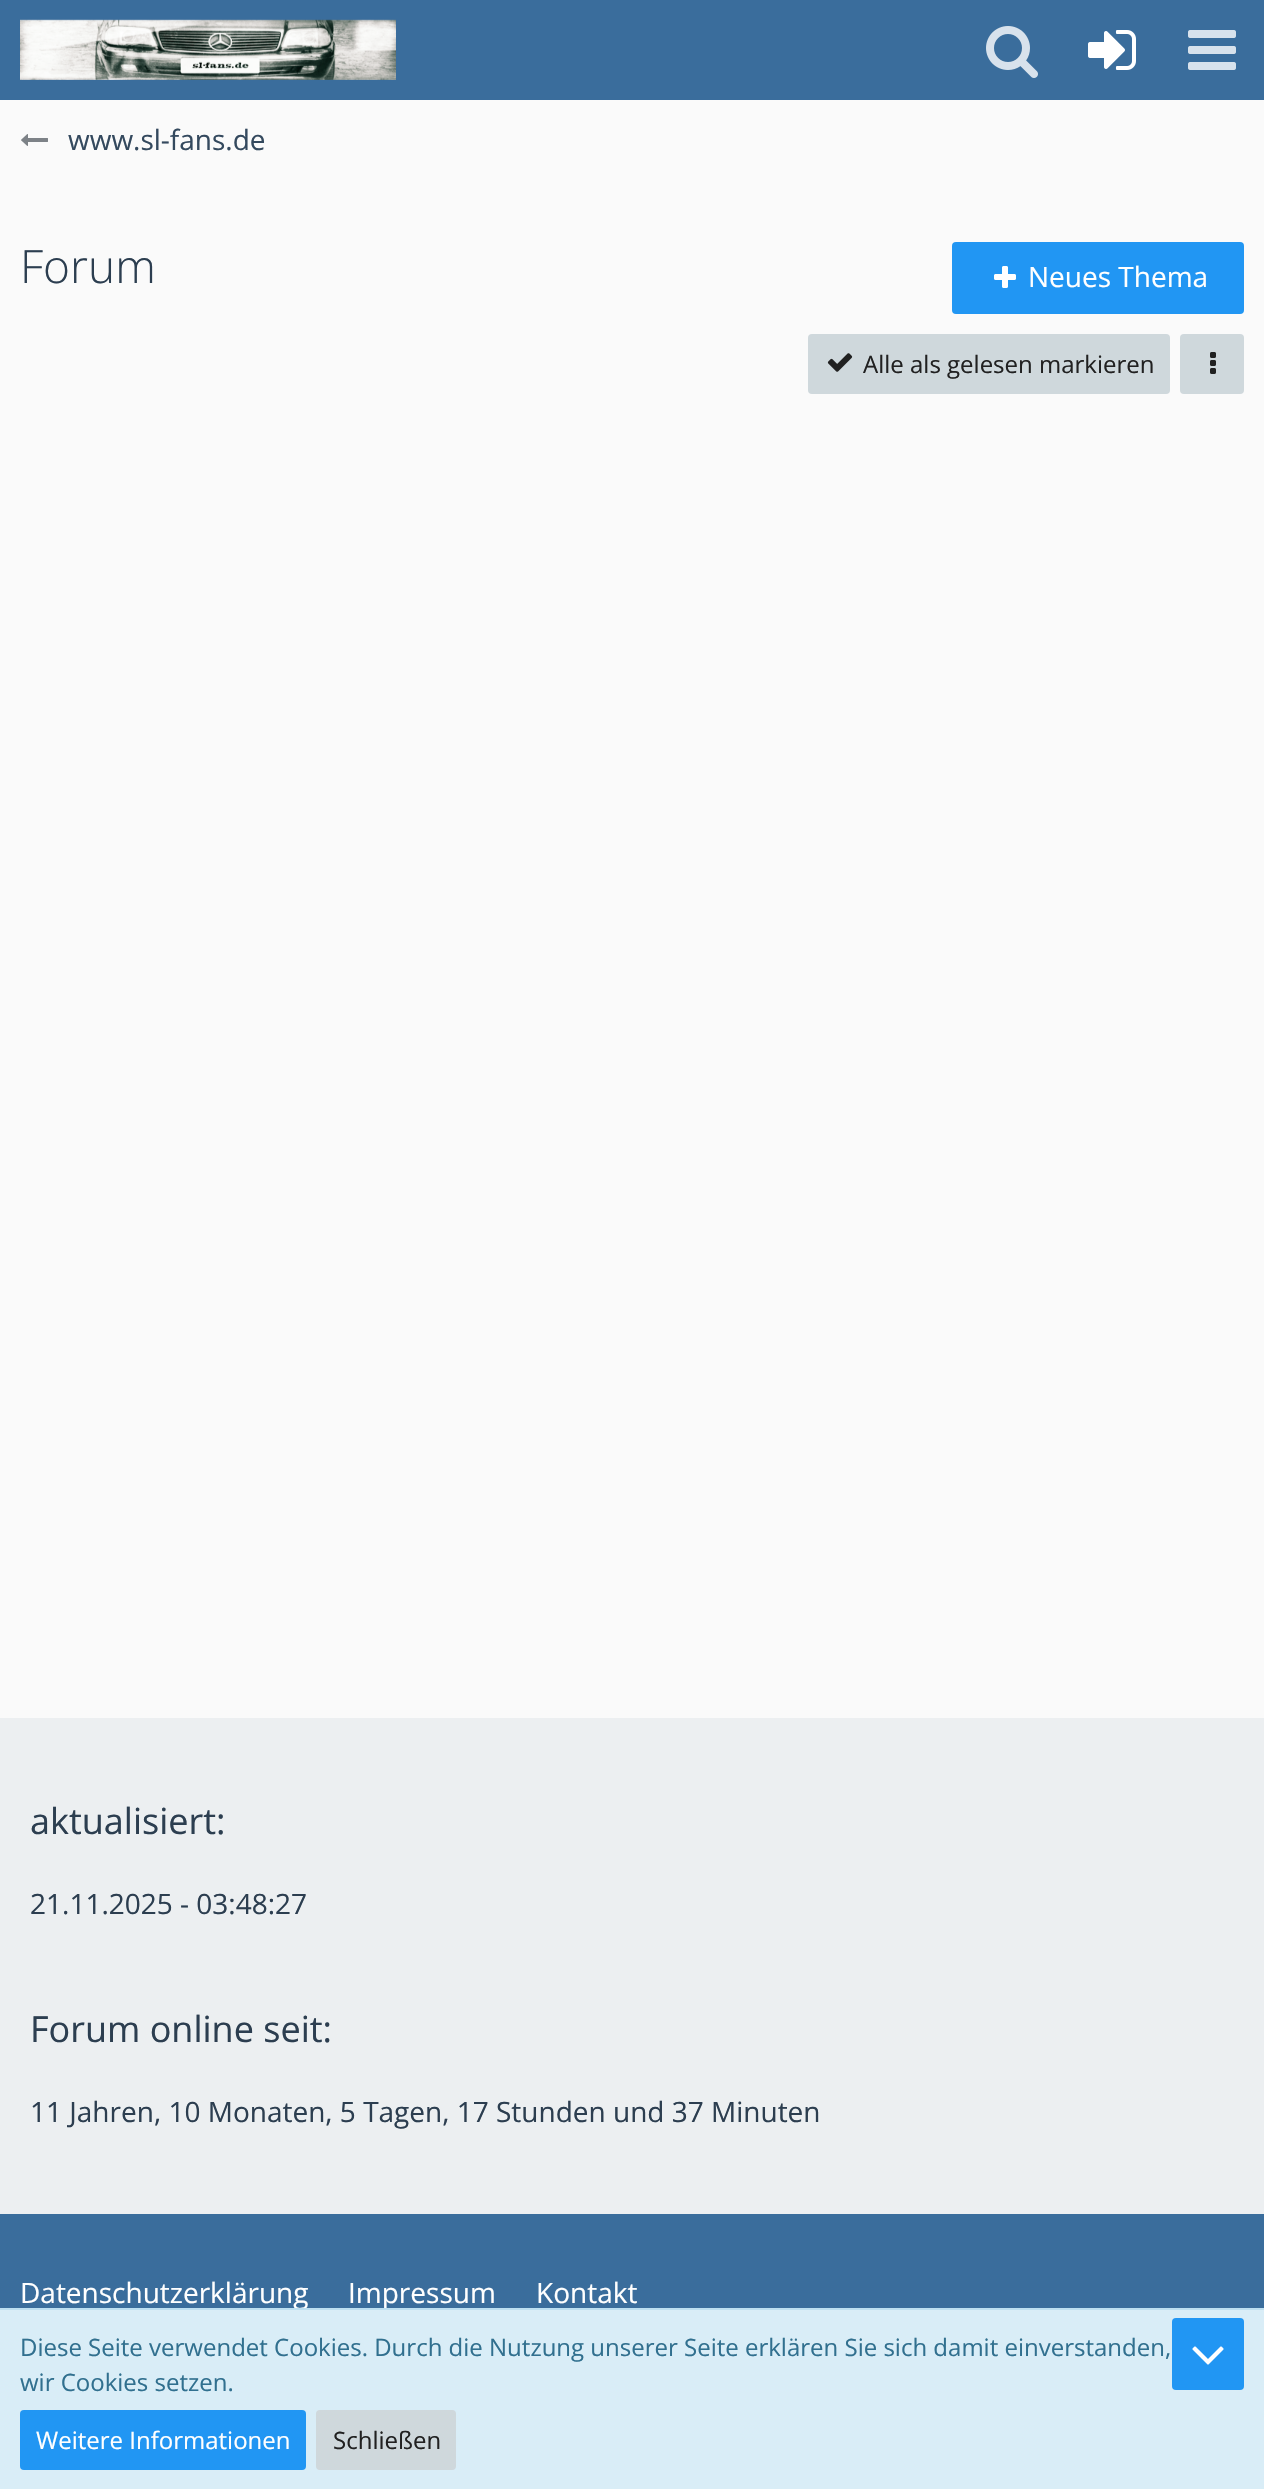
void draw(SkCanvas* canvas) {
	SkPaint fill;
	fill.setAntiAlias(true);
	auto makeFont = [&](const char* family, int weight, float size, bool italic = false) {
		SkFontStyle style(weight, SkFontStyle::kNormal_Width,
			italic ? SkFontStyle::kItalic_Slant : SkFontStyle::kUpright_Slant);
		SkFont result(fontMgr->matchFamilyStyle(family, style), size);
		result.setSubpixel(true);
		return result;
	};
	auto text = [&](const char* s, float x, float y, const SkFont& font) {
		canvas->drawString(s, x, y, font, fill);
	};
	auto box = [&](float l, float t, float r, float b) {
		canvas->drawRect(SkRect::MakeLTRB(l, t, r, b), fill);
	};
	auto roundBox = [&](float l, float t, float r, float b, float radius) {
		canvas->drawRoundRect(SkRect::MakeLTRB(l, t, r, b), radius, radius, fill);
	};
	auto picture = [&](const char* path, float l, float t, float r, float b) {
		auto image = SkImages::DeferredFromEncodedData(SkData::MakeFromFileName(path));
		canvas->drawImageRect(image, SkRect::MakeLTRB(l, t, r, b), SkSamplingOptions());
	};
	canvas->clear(0xFFFAFAFA);
	fill.setColor(0xFF3A6D9C);
	box(0, 0, 1264, 100);
	picture("image0.png", 20, 19, 396, 80);
	picture("image1.png", 986, 26, 1038, 78);
	picture("image2.png", 1088, 30, 1136, 70);
	picture("image3.png", 1188, 30, 1236, 70);
	picture("image4.png", 21, 134, 48, 146);
	fill.setColor(0xFF2196F3);
	roundBox(952, 242, 1244, 314, 4);
	picture("image5.png", 994, 266, 1016, 288);
	fill.setColor(0xFFCFD8DC);
	roundBox(808, 334, 1170, 394, 4);
	picture("image6.png", 827, 353, 853, 372);
	roundBox(1180, 334, 1244, 394, 4);
	picture("image7.png", 1210, 352, 1216, 374);
	fill.setColor(0xFFECEFF1);
	box(0, 1718, 1264, 2214);
	fill.setColor(0xFF3A6D9C);
	box(0, 2214, 1264, 2308);
	fill.setColor(0xFFD9EDF7);
	box(0, 2310, 1264, 2489);
	fill.setColor(0xFF2196F3);
	roundBox(20, 2410, 306, 2470, 4);
	fill.setColor(0xFFCFD8DC);
	roundBox(316, 2410, 456, 2470, 4);
	fill.setColor(0xFF2196F3);
	roundBox(1172, 2318, 1244, 2390, 4);
	picture("image8.png", 1192, 2346, 1224, 2365);
	auto font1 = makeFont("Open Sans", 400, 28);
	fill.setColor(0xFF34495E);
	text("www.sl-fans.de", 68, 150, font1);
	auto font2 = makeFont("Open Sans", 300, 46);
	fill.setColor(0xFF2C3E50);
	text("Forum", 20, 283, font2);
	fill.setColor(0xFFFFFFFF);
	text("Neues Thema", 1028, 287, font1);
	auto font3 = makeFont("Open Sans", 400, 24);
	fill.setColor(0xFF212121);
	text("Alle als gelesen markieren", 863, 373, font3);
	auto font4 = makeFont("Open Sans", 400, 36);
	fill.setColor(0xFF2C3E50);
	text("aktualisiert:", 30, 1834, font4);
	text("21.11.2025 - 03:48:27", 30, 1914, font1);
	text("Forum online seit:", 30, 2042, font4);
	text("11 Jahren, 10 Monaten, 5 Tagen, 17 Stunden und 37 Minuten", 30, 2122, font1);
	fill.setColor(0xFFFFFFFF);
	text("Datenschutzerklärung", 20, 2303, font1);
	text("Impressum", 348, 2303, font1);
	text("Kontakt", 536, 2303, font1);
	fill.setColor(0xFFBCDFF1);
	box(0, 2308, 1264, 2310);
	fill.setColor(0xFF31708F);
	text("Diese Seite verwendet Cookies. Durch die Nutzung unserer Seite erklären Sie sich damit einverstanden,", 20, 2356, font3);
	text("wir Cookies setzen.", 20, 2391, font3);
	fill.setColor(0xFFFFFFFF);
	text("Weitere Informationen", 36, 2449, font3);
	fill.setColor(0xFF212121);
	text("Schließen", 333, 2449, font3);
}
